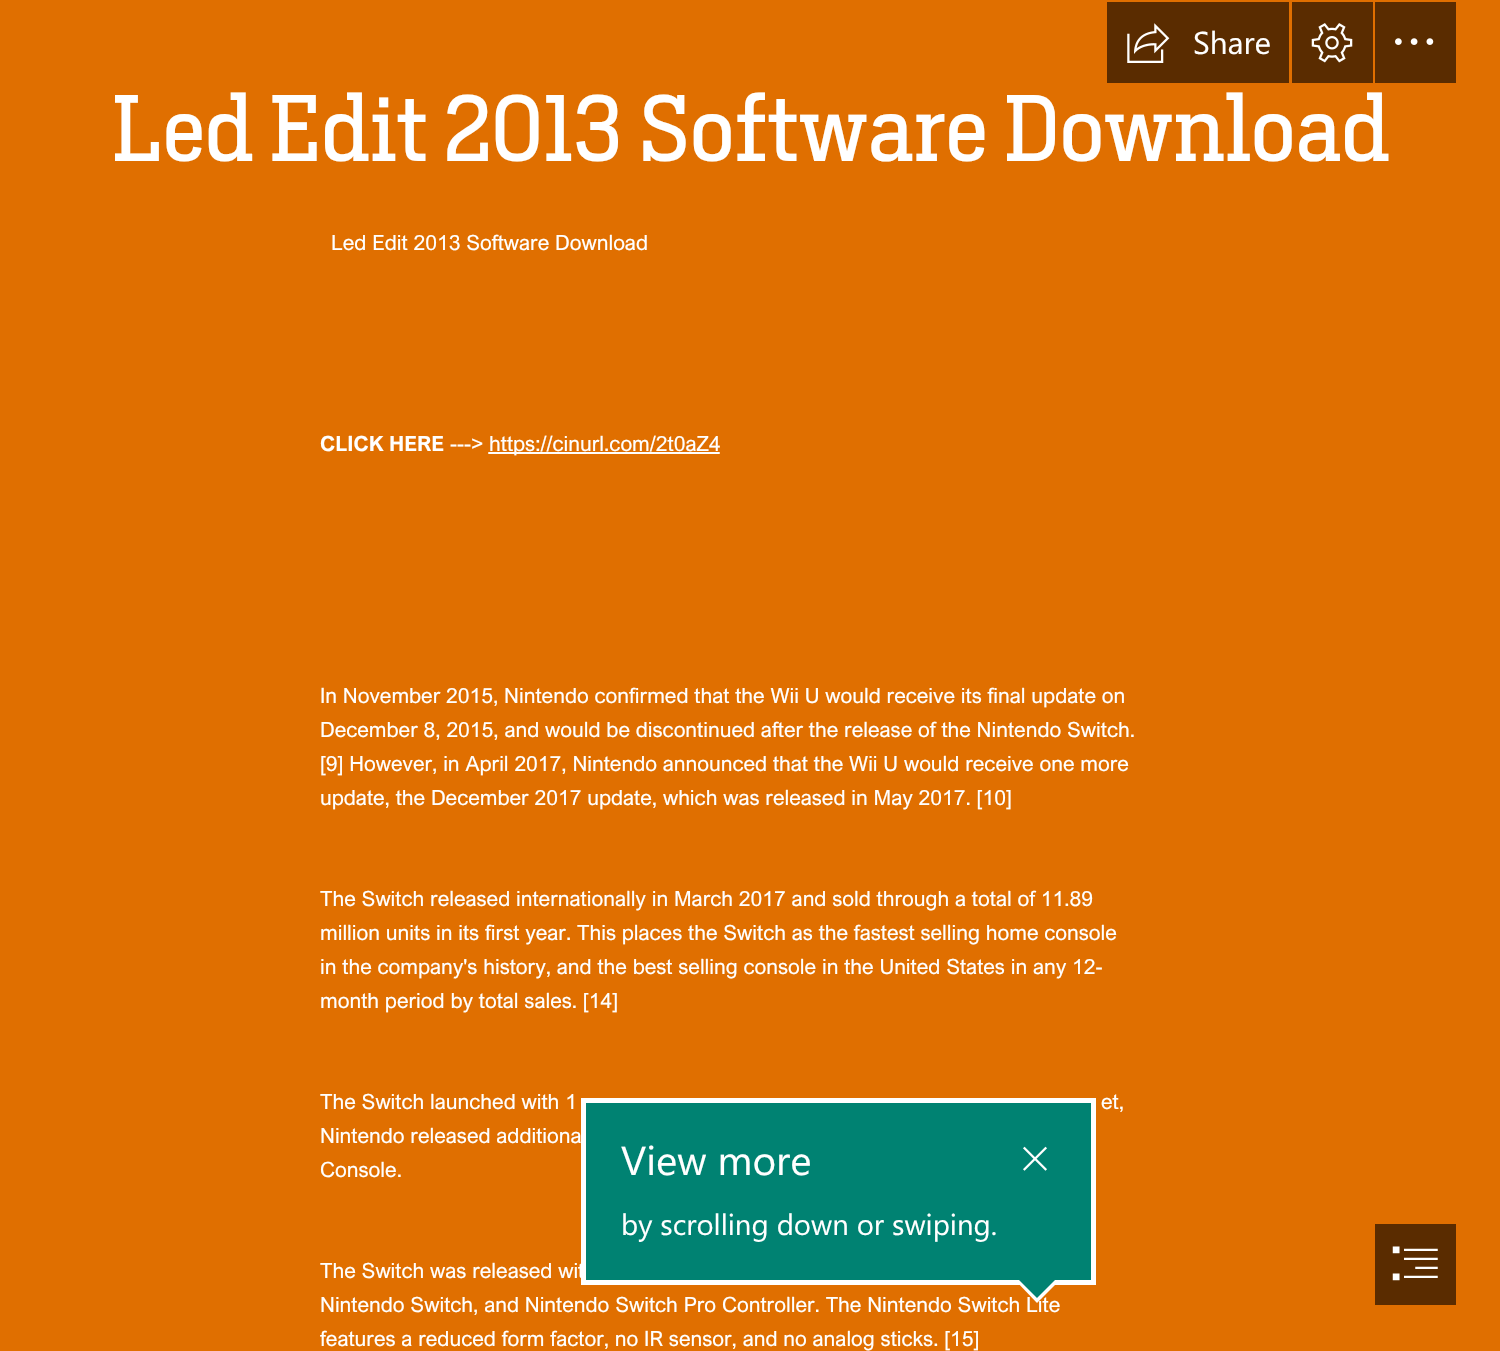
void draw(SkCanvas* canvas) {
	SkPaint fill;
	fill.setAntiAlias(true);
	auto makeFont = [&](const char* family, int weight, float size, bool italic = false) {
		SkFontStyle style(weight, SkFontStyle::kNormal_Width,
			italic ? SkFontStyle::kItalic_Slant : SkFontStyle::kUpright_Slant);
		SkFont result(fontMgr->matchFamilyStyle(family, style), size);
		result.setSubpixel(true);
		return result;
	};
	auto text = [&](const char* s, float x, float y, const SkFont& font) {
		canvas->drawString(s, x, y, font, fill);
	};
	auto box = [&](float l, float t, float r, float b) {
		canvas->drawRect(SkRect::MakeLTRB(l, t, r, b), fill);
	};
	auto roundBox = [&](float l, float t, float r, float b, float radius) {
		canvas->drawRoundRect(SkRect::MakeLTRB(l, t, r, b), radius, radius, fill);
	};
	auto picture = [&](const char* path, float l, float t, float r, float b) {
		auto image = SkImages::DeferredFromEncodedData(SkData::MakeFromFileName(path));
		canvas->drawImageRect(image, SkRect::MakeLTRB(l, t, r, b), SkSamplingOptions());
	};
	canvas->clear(0xFFE06F00);
	fill.setColor(0xFF5A2C00);
	box(1107, 2, 1289, 83);
	picture("image0.png", 1127, 23, 1170, 63);
	box(1292, 2, 1373, 83);
	picture("image1.png", 1311, 23, 1353, 63);
	box(1375, 2, 1456, 83);
	picture("image2.png", 1395, 38, 1434, 45);
	fill.setColor(0xFFFFFFFF);
	roundBox(488, 452, 720, 454, 1);
	fill.setColor(0xFF5A2C00);
	box(1375, 1224, 1456, 1305);
	picture("image4.png", 1392, 1246, 1438, 1281);
	auto font1 = makeFont("Segoe UI", 400, 31.5f);
	fill.setColor(0xFFFFFFFF);
	text("Share", 1193, 54, font1);
	auto font2 = makeFont("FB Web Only", 400, 88);
	text("Led Edit 2013 Software Download", 112, 161, font2);
	auto font3 = makeFont("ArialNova", 400, 21.1f);
	text("Led Edit 2013 Software Download", 331, 250, font3);
	auto font4 = makeFont("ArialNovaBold", 700, 21.1f);
	text("CLICK HERE", 320, 451, font4);
	text("--->", 450, 451, font3);
	text("https://cinurl.com/2t0aZ4", 489, 451, font3);
	text("In November 2015, Nintendo confirmed that the Wii U would receive its final update on", 320, 703, font3);
	text("December 8, 2015, and would be discontinued after the release of the Nintendo Switch.", 320, 737, font3);
	text("[9] However, in April 2017, Nintendo announced that the Wii U would receive one more", 320, 771, font3);
	text("update, the December 2017 update, which was released in May 2017. [10]", 320, 805, font3);
	text("The Switch released internationally in March 2017 and sold through a total of 11.89", 320, 906, font3);
	text("million units in its first year. This places the Switch as the fastest selling home console", 320, 940, font3);
	text("in the company's history, and the best selling console in the United States in any 12-", 320, 974, font3);
	text("month period by total sales. [14]", 320, 1008, font3);
	text("The Switch launched with 1", 320, 1109, font3);
	text("et,", 1101, 1109, font3);
	text("Nintendo released additiona", 320, 1143, font3);
	text("Console.", 320, 1177, font3);
	text("The Switch was released wit", 320, 1278, font3);
	text("Nintendo Switch, and Nintendo Switch Pro Controller. The Nintendo Switch Lite", 320, 1312, font3);
	text("features a reduced form factor, no IR sensor, and no analog sticks. [15]", 320, 1346, font3);
	fill.setColor(0xFF008272);
	canvas->drawRect(SkRect::MakeLTRB(583.5f, 1100.5f, 1093.5f, 1282.5f), fill);
	fill.setStyle(SkPaint::kStroke_Style);
	fill.setStrokeWidth(5);
	fill.setColor(0xFFFFFFFF);
	canvas->drawRect(SkRect::MakeLTRB(583.5f, 1100.5f, 1093.5f, 1282.5f), fill);
	auto font5 = makeFont("Segoe UI", 400, 40.5f);
	fill.setStyle(SkPaint::kFill_Style);
	text("View more", 621, 1175, font5);
	auto font6 = makeFont("Segoe UI", 400, 29.25f);
	text("by scrolling down or swiping.", 621, 1235, font6);
	picture("image3.png", 1023, 1146, 1047, 1171);
	canvas->drawPath(SkPathBuilder().moveTo(1015, 1280).lineTo(1060, 1280).lineTo(1037, 1303).close().detach(), fill);
	fill.setColor(0xFF008272);
	canvas->drawPath(SkPathBuilder().moveTo(1019, 1280).lineTo(1055, 1280).lineTo(1037, 1298).close().detach(), fill);
}
